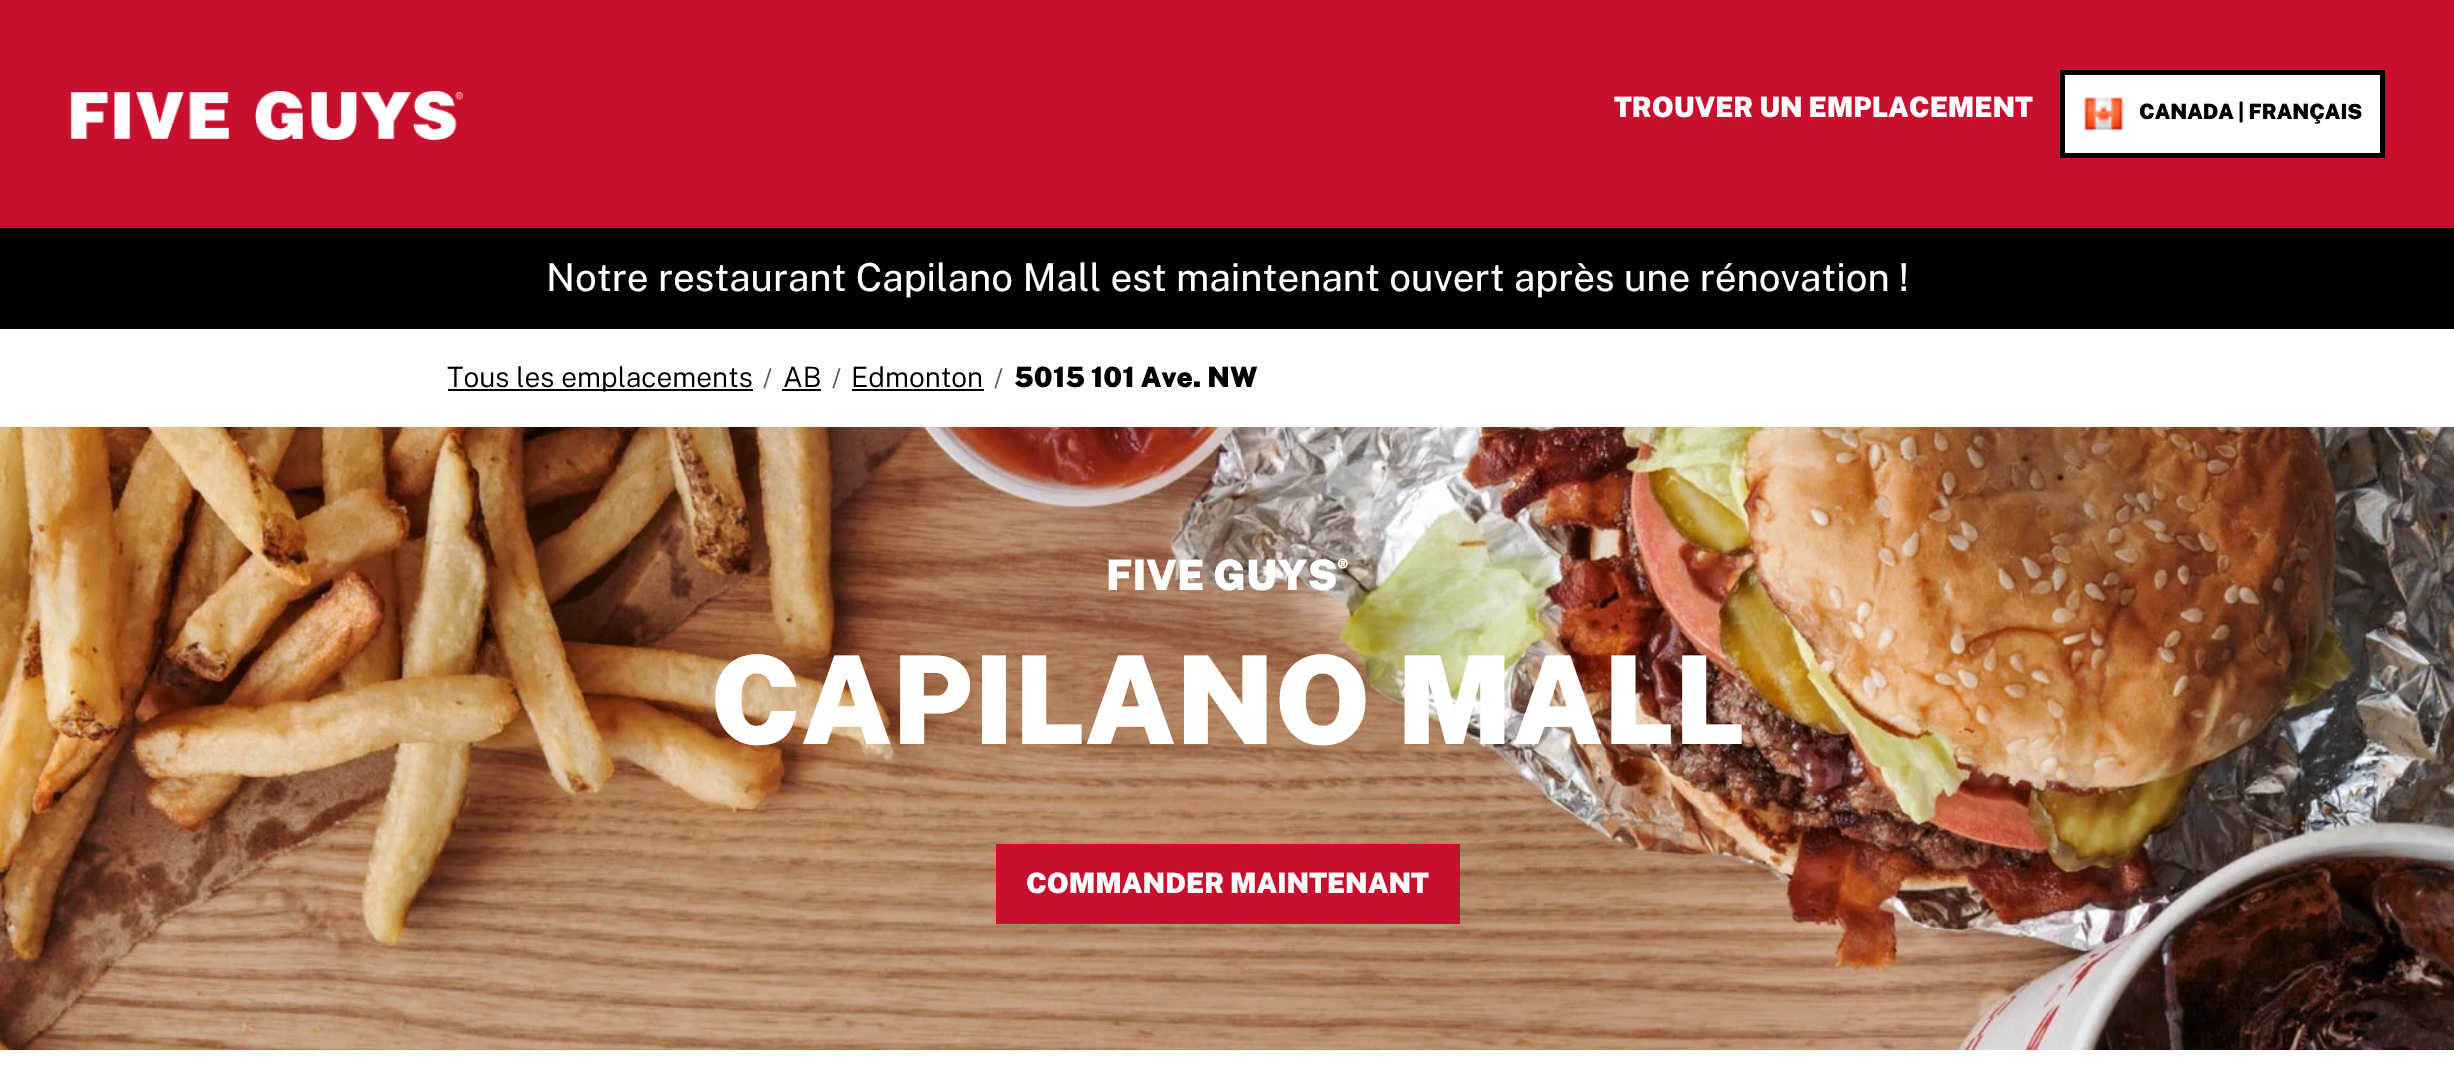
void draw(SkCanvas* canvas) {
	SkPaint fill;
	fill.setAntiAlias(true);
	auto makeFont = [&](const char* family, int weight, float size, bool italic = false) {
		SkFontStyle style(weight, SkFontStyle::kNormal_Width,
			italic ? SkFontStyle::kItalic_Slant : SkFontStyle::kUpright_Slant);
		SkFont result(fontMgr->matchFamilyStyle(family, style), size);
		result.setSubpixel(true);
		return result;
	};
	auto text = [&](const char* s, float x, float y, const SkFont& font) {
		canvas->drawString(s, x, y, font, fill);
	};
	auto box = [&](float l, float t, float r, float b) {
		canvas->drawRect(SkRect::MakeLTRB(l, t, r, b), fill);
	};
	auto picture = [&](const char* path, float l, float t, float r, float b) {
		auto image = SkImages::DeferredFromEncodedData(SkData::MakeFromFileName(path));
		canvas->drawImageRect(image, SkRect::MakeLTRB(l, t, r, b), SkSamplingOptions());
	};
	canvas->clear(0xFFFFFFFF);
	fill.setColor(0xFFC8102E);
	box(0, 0, 2454, 228);
	picture("image0.png", 70, 91, 463, 140);
	fill.setColor(0xFFFFFFFF);
	canvas->drawRect(SkRect::MakeLTRB(2062.5f, 72.5f, 2382.5f, 155.5f), fill);
	fill.setStyle(SkPaint::kStroke_Style);
	fill.setStrokeWidth(5);
	fill.setColor(0xFF000000);
	canvas->drawRect(SkRect::MakeLTRB(2062.5f, 72.5f, 2382.5f, 155.5f), fill);
	picture("image1.png", 2084, 97, 2123, 131);
	fill.setStyle(SkPaint::kFill_Style);
	box(0, 228, 2454, 329);
	box(448, 389, 753, 391);
	box(782, 389, 821, 391);
	box(852, 389, 984, 391);
	picture("image2.png", 0, 427, 2454, 1050);
	fill.setColor(0xFFC8102E);
	box(996, 844, 1460, 924);
	auto font1 = makeFont("Public Sans", 900, 28);
	fill.setColor(0xFFFFFFFF);
	text("TROUVER UN EMPLACEMENT", 1614, 117, font1);
	auto font2 = makeFont("Public Sans", 900, 21);
	fill.setColor(0xFF000000);
	text("CANADA | FRANÇAIS", 2139, 119, font2);
	auto font3 = makeFont("Public Sans", 400, 38.5f);
	fill.setColor(0xFFFFFFFF);
	text("Notre restaurant Capilano Mall est maintenant ouvert après une rénovation !", 546, 291, font3);
	auto font4 = makeFont("Public Sans", 300, 28);
	fill.setColor(0xFF000000);
	text("Tous les emplacements", 447, 387, font4);
	auto font5 = makeFont("Public Sans", 300, 26);
	fill.setColor(0xFF59595C);
	text("/", 763, 387, font5);
	fill.setColor(0xFF000000);
	text("AB", 783, 387, font4);
	fill.setColor(0xFF59595C);
	text("/", 832, 387, font5);
	fill.setColor(0xFF000000);
	text("Edmonton", 851, 387, font4);
	fill.setColor(0xFF59595C);
	text("/", 994, 387, font5);
	fill.setColor(0xFF000000);
	text("5015 101 Ave. NW", 1014, 387, font1);
	auto font6 = makeFont("Public Sans", 900, 42);
	fill.setColor(0xFFFFFFFF);
	text("FIVE GUYS", 1106, 590, font6);
	text("®", 1337, 574, font2);
	auto font7 = makeFont("Public Sans", 900, 122.5f);
	text("CAPILANO MALL", 710, 744, font7);
	text("COMMANDER MAINTENANT", 1026, 893, font1);
}
